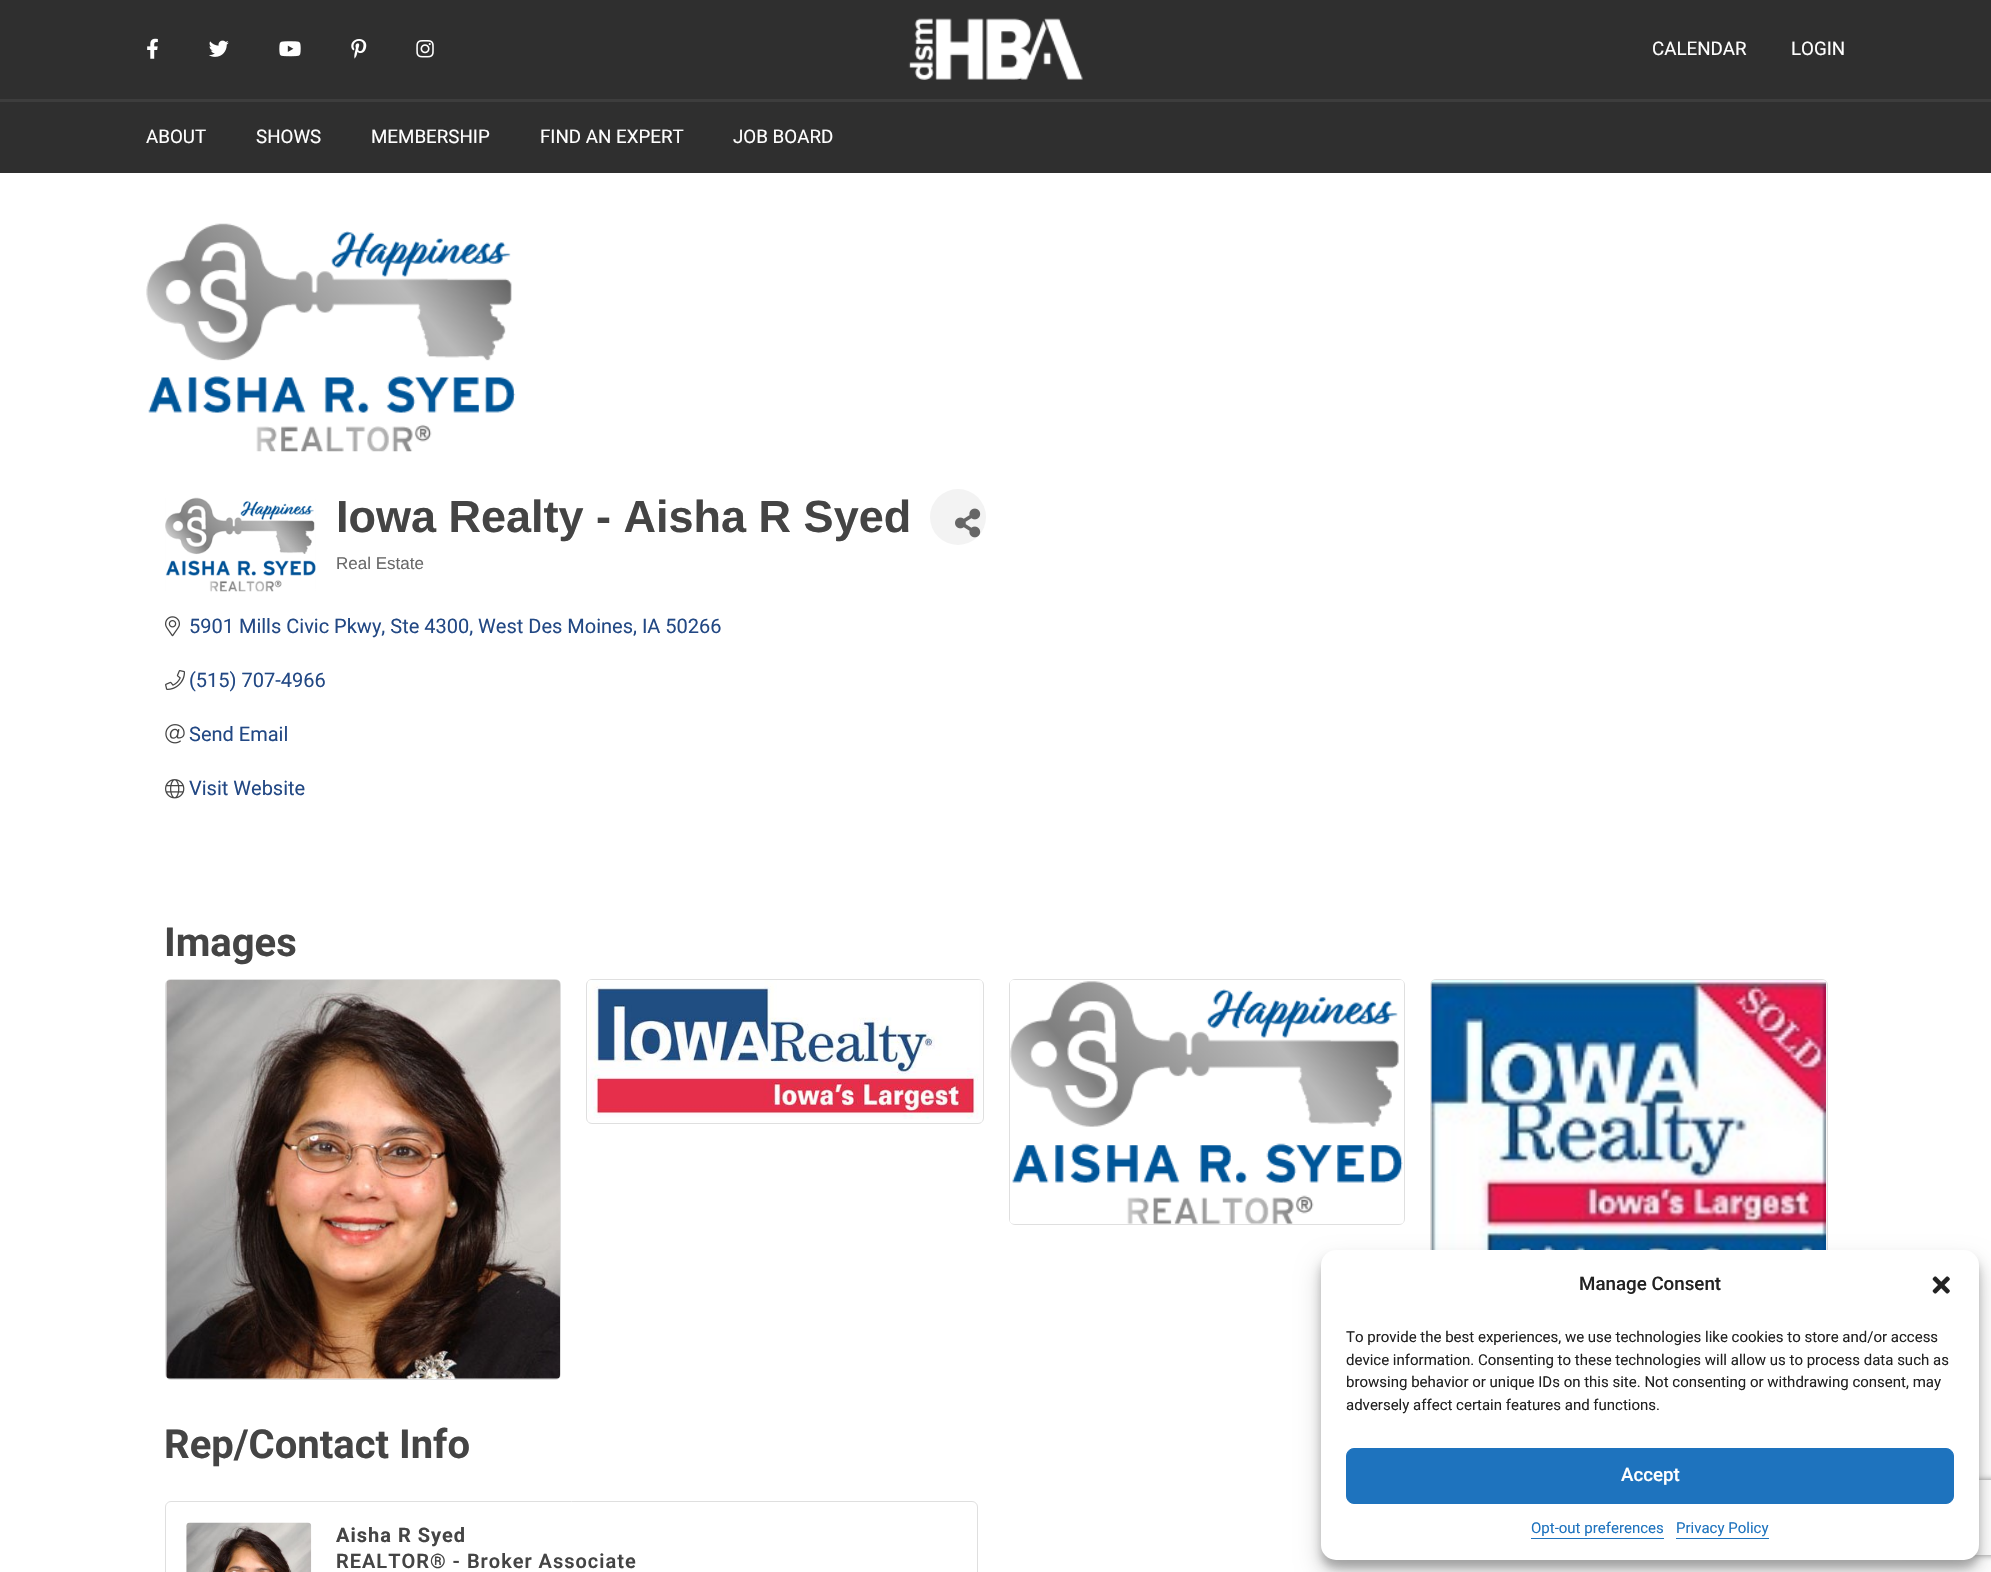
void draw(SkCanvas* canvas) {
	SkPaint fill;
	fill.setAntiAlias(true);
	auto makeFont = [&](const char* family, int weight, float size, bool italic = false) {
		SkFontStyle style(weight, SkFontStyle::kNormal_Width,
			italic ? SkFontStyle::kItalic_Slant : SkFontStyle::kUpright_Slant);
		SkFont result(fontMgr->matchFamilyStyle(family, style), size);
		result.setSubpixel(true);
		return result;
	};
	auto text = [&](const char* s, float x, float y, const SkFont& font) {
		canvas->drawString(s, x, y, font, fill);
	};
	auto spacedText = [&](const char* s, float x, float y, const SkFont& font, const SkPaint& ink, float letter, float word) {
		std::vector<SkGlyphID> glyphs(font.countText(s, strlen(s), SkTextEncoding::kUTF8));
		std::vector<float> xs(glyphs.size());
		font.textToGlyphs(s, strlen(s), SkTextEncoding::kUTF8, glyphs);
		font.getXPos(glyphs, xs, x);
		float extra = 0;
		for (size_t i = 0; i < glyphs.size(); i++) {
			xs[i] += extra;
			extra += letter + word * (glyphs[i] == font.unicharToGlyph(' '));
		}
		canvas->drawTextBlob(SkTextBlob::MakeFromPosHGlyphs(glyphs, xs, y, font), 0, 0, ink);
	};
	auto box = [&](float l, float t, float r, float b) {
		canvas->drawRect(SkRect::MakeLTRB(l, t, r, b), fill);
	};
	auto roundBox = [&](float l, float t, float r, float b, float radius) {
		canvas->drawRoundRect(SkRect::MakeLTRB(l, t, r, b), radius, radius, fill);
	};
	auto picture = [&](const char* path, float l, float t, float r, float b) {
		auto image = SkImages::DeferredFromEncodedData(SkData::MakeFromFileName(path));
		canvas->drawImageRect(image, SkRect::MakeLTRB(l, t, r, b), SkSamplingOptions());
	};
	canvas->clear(0xFFFFFFFF);
	fill.setColor(0xFF2F2F2F);
	box(0, 0, 1991, 173);
	picture("image0.png", 147, 38, 158, 59);
	picture("image1.png", 209, 40, 229, 57);
	picture("image2.png", 279, 41, 301, 57);
	picture("image3.png", 351, 39, 367, 59);
	picture("image4.png", 416, 40, 434, 58);
	picture("image5.png", 908, 18, 1083, 80);
	fill.setColor(0xFF3D3D3D);
	box(0, 99, 1991, 102);
	picture("image6.png", 146, 223, 516, 452);
	picture("image7.png", 165, 497, 316, 592);
	fill.setColor(0xFFF3F3F3);
	canvas->drawCircle(958, 517, 28, fill);
	picture("image8.png", 955, 508, 981, 538);
	picture("image9.png", 165, 616, 180, 637);
	picture("image10.png", 165, 670, 185, 690);
	picture("image11.png", 165, 724, 185, 744);
	picture("image12.png", 165, 779, 185, 799);
	fill.setStyle(SkPaint::kStroke_Style);
	fill.setStrokeWidth(1);
	fill.setColor(0xFFDFDFDF);
	canvas->drawRoundRect(SkRect::MakeLTRB(165.5f, 979.5f, 560.5f, 1379.5f), 5.5f, 5.5f, fill);
	picture("image13.png", 166, 980, 560, 1379);
	canvas->drawRoundRect(SkRect::MakeLTRB(586.5f, 979.5f, 983.5f, 1123.5f), 5.5f, 5.5f, fill);
	picture("image14.png", 588, 980, 982, 1122);
	canvas->drawRoundRect(SkRect::MakeLTRB(1009.5f, 979.5f, 1404.5f, 1224.5f), 5.5f, 5.5f, fill);
	picture("image15.png", 1010, 980, 1404, 1224);
	canvas->drawRoundRect(SkRect::MakeLTRB(1430.5f, 979.5f, 1827.5f, 1384.5f), 5.5f, 5.5f, fill);
	picture("image16.png", 1431, 980, 1827, 1250);
	canvas->drawRoundRect(SkRect::MakeLTRB(165.5f, 1501.5f, 977.5f, 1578.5f), 5.5f, 5.5f, fill);
	picture("image17.png", 186, 1522, 312, 1572);
	fill.setStyle(SkPaint::kFill_Style);
	fill.setColor(0x3B000000);
	fill.setMaskFilter(SkMaskFilter::MakeBlur(kNormal_SkBlurStyle, 4));
	canvas->drawRoundRect(SkRect::MakeLTRB(1321, 1258, 1979, 1568), 15, 15, fill);
	fill.setMaskFilter(nullptr);
	fill.setColor(0x30000000);
	fill.setMaskFilter(SkMaskFilter::MakeBlur(kNormal_SkBlurStyle, 12.5f));
	canvas->drawRoundRect(SkRect::MakeLTRB(1321, 1263, 1979, 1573), 15, 15, fill);
	fill.setMaskFilter(nullptr);
	canvas->save();
	canvas->clipPath(SkPathBuilder(SkPathFillType::kEvenOdd).moveTo(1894, 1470).lineTo(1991, 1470).lineTo(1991, 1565).lineTo(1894, 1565).close().moveTo(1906.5f, 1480).lineTo(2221.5f, 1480).cubicTo(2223, 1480, 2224, 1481, 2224, 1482.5f).lineTo(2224, 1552.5f).cubicTo(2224, 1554, 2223, 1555, 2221.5f, 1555).lineTo(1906.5f, 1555).cubicTo(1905, 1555, 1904, 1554, 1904, 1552.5f).lineTo(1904, 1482.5f).cubicTo(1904, 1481, 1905, 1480, 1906.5f, 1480).close().detach(), true);
	fill.setColor(0xFF808080);
	fill.setMaskFilter(SkMaskFilter::MakeBlur(kNormal_SkBlurStyle, 3));
	canvas->drawRoundRect(SkRect::MakeLTRB(1904, 1480, 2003, 1555), 2.5f, 2.5f, fill);
	fill.setMaskFilter(nullptr);
	canvas->restore();
	fill.setColor(0xFFFFFFFF);
	roundBox(1321, 1250, 1979, 1560, 15);
	picture("image18.png", 1932, 1276, 1950, 1294);
	fill.setColor(0xFF1E73BE);
	canvas->drawRoundRect(SkRect::MakeLTRB(1346.5f, 1448.5f, 1953.5f, 1503.5f), 7.5f, 7.5f, fill);
	fill.setStyle(SkPaint::kStroke_Style);
	canvas->drawRoundRect(SkRect::MakeLTRB(1346.5f, 1448.5f, 1953.5f, 1503.5f), 7.5f, 7.5f, fill);
	fill.setStyle(SkPaint::kFill_Style);
	box(1531, 1538, 1664, 1539);
	box(1676, 1538, 1769, 1539);
	auto font1 = makeFont("Roboto", 400, 18.75f);
	fill.setColor(0xFFFFFFFF);
	text("CALENDAR", 1652, 55, font1);
	text("LOGIN", 1791, 55, font1);
	text("ABOUT", 146, 143, font1);
	text("SHOWS", 256, 143, font1);
	text("MEMBERSHIP", 371, 143, font1);
	text("FIND AN EXPERT", 540, 143, font1);
	text("JOB BOARD", 733, 143, font1);
	auto font2 = makeFont("Liberation Sans", 700, 45);
	fill.setColor(0xFF444444);
	text("Iowa Realty - Aisha R Syed", 336, 532, font2);
	auto font3 = makeFont("Liberation Sans", 400, 17);
	fill.setColor(0xFF696969);
	text("Real Estate", 336, 569, font3);
	auto font4 = makeFont("Roboto", 400, 20);
	fill.setColor(0xFF224884);
	text("5901 Mills Civic Pkwy, Ste 4300, West Des Moines, IA 50266", 189, 633, font4);
	text("(515) 707-4966", 189, 687, font4);
	text("Send Email", 189, 741, font4);
	text("Visit Website", 189, 795, font4);
	auto font5 = makeFont("Roboto", 700, 40);
	fill.setColor(0xFF444444);
	text("Images", 164, 956, font5);
	text("Rep/Contact Info", 164, 1458, font5);
	auto font6 = makeFont("Roboto", 700, 20);
	spacedText("Aisha R Syed", 336, 1542, font6, fill, 1, 0);
	auto font7 = makeFont("Roboto", 600, 20);
	spacedText("REALTOR® - Broker Associate", 336, 1568, font7, fill, 1, 0);
	auto font8 = makeFont("Roboto", 500, 18.75f);
	fill.setColor(0xFF222222);
	text("Manage Consent", 1579, 1290, font8);
	auto font9 = makeFont("Roboto", 400, 15);
	text("To provide the best experiences, we use technologies like cookies to store and/or access", 1346, 1342, font9);
	text("device information. Consenting to these technologies will allow us to process data such as", 1346, 1365, font9);
	text("browsing behavior or unique IDs on this site. Not consenting or withdrawing consent, may", 1346, 1387, font9);
	text("adversely affect certain features and functions.", 1346, 1410, font9);
	fill.setColor(0xFFFFFFFF);
	text("Accept", 1621, 1481, font8);
	fill.setColor(0xFF1E73BE);
	text("Opt-out preferences", 1531, 1533, font9);
	text("Privacy Policy", 1676, 1533, font9);
}
